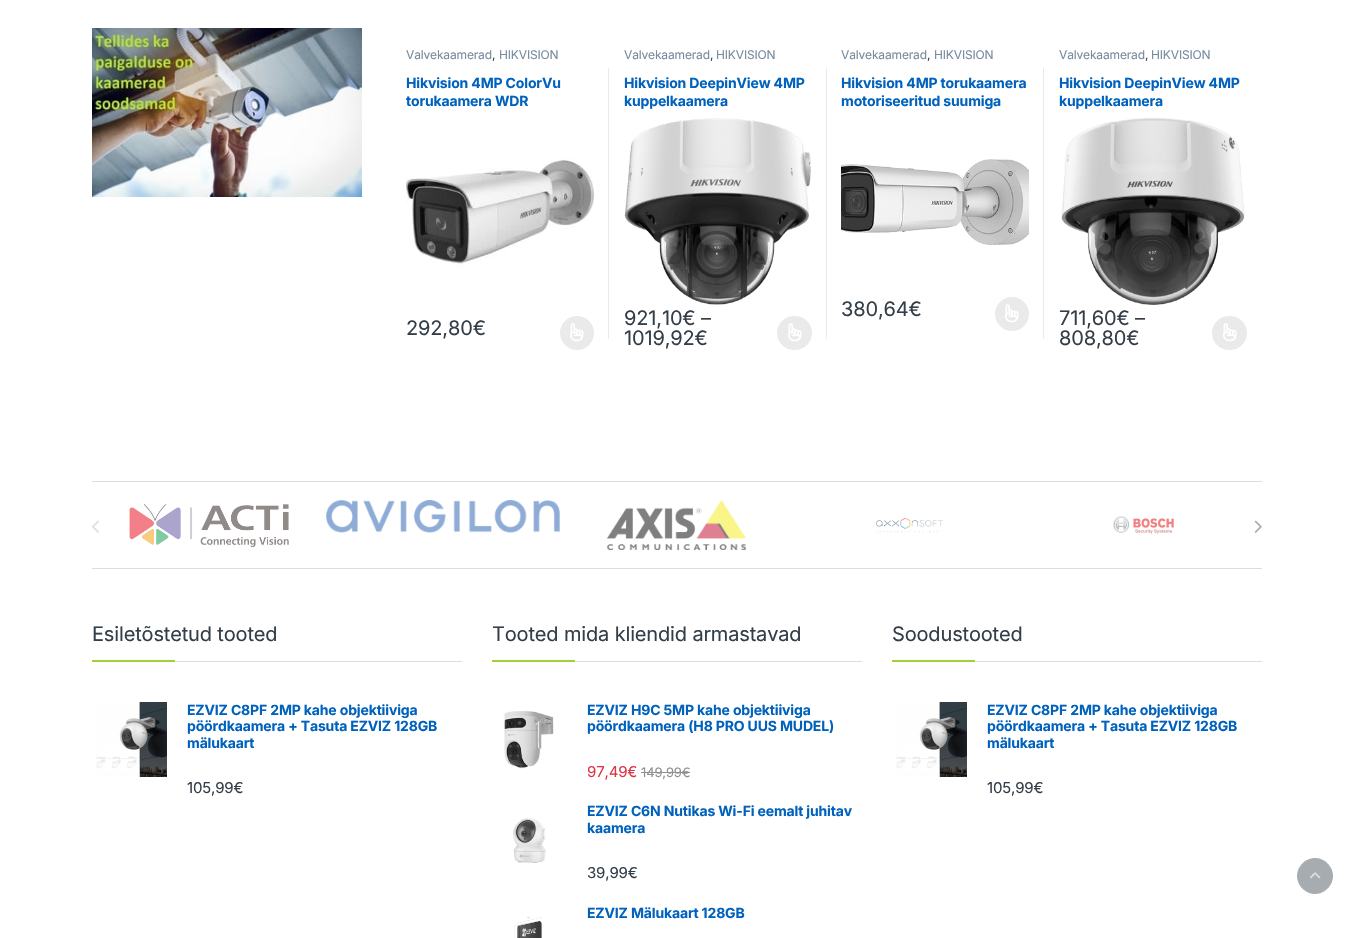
void draw(SkCanvas* canvas) {
	SkPaint fill;
	fill.setAntiAlias(true);
	auto makeFont = [&](const char* family, int weight, float size, bool italic = false) {
		SkFontStyle style(weight, SkFontStyle::kNormal_Width,
			italic ? SkFontStyle::kItalic_Slant : SkFontStyle::kUpright_Slant);
		SkFont result(fontMgr->matchFamilyStyle(family, style), size);
		result.setSubpixel(true);
		return result;
	};
	auto spacedText = [&](const char* s, float x, float y, const SkFont& font, const SkPaint& ink, float letter, float word) {
		std::vector<SkGlyphID> glyphs(font.countText(s, strlen(s), SkTextEncoding::kUTF8));
		std::vector<float> xs(glyphs.size());
		font.textToGlyphs(s, strlen(s), SkTextEncoding::kUTF8, glyphs);
		font.getXPos(glyphs, xs, x);
		float extra = 0;
		for (size_t i = 0; i < glyphs.size(); i++) {
			xs[i] += extra;
			extra += letter + word * (glyphs[i] == font.unicharToGlyph(' '));
		}
		canvas->drawTextBlob(SkTextBlob::MakeFromPosHGlyphs(glyphs, xs, y, font), 0, 0, ink);
	};
	auto box = [&](float l, float t, float r, float b) {
		canvas->drawRect(SkRect::MakeLTRB(l, t, r, b), fill);
	};
	auto roundBox = [&](float l, float t, float r, float b, float radius) {
		canvas->drawRoundRect(SkRect::MakeLTRB(l, t, r, b), radius, radius, fill);
	};
	auto picture = [&](const char* path, float l, float t, float r, float b) {
		auto image = SkImages::DeferredFromEncodedData(SkData::MakeFromFileName(path));
		canvas->drawImageRect(image, SkRect::MakeLTRB(l, t, r, b), SkSamplingOptions());
	};
	canvas->clear(0xFFFFFFFF);
	picture("image0.png", 92, 28, 362, 197);
	picture("image1.png", 406, 158, 594, 268);
	fill.setColor(0xFFEAEAEA);
	canvas->drawCircle(577, 333, 17, fill);
	picture("image2.png", 570, 323, 584, 342);
	box(608, 68, 609, 339);
	picture("image3.png", 624, 118, 811, 305);
	roundBox(777, 316, 812, 350, 17);
	picture("image2.png", 788, 323, 802, 342);
	box(826, 68, 827, 339);
	picture("image4.png", 841, 159, 1029, 245);
	canvas->drawCircle(1012, 314, 17, fill);
	picture("image2.png", 1005, 304, 1019, 323);
	box(1043, 68, 1044, 339);
	picture("image5.png", 1061, 118, 1245, 305);
	roundBox(1212, 316, 1247, 350, 17);
	picture("image2.png", 1223, 323, 1237, 342);
	fill.setColor(0xFFDDDDDD);
	box(92, 481, 1262, 482);
	box(92, 568, 1262, 569);
	picture("image6.png", 129, 504, 289, 547);
	picture("image7.png", 326, 500, 560, 533);
	picture("image8.png", 607, 500, 746, 550);
	picture("image9.png", 876, 517, 944, 533);
	picture("image10.png", 1113, 516, 1174, 534);
	picture("image11.png", 92, 520, 99, 533);
	picture("image12.png", 1254, 520, 1262, 533);
	box(175, 661, 462, 662);
	fill.setColor(0xFFA3D133);
	box(92, 660, 175, 662);
	picture("image13.png", 96, 702, 167, 777);
	fill.setColor(0xFFDDDDDD);
	box(575, 661, 862, 662);
	fill.setColor(0xFFA3D133);
	box(492, 660, 575, 662);
	picture("image14.png", 503, 711, 554, 769);
	fill.setColor(0xFF8F8F8F);
	box(641, 772, 690, 773);
	picture("image15.png", 513, 818, 546, 863);
	picture("image16.png", 514, 916, 542, 938);
	fill.setColor(0xFFDDDDDD);
	box(975, 661, 1262, 662);
	fill.setColor(0xFFA3D133);
	box(892, 660, 975, 662);
	picture("image13.png", 896, 702, 967, 777);
	fill.setColor(0xFFA7ACB1);
	canvas->drawCircle(1315, 876, 17.5f, fill);
	fill.setStyle(SkPaint::kStroke_Style);
	fill.setStrokeWidth(1);
	canvas->drawCircle(1315, 876, 17.5f, fill);
	picture("image17.png", 1310, 872, 1321, 879);
	auto font1 = makeFont("Inter", 400, 12);
	fill.setStyle(SkPaint::kFill_Style);
	fill.setColor(0xFF768B9E);
	spacedText("Valvekaamerad", 406, 59, font1, fill, -0.15f, 0);
	fill.setColor(0xFF333E48);
	spacedText(",", 492, 59, font1, fill, -0.15f, 0);
	fill.setColor(0xFF768B9E);
	spacedText("HIKVISION", 499, 59, font1, fill, -0.15f, 0);
	auto font2 = makeFont("Inter", 700, 14);
	fill.setColor(0xFF0062BD);
	spacedText("Hikvision 4MP ColorVu", 406, 88, font2, fill, -0.15f, 0);
	spacedText("torukaamera WDR", 406, 106, font2, fill, -0.15f, 0);
	auto font3 = makeFont("Inter", 400, 20);
	fill.setColor(0xFF333E48);
	spacedText("292,80€", 406, 335, font3, fill, -0.15f, 0);
	fill.setColor(0xFF768B9E);
	spacedText("Valvekaamerad", 624, 59, font1, fill, -0.15f, 0);
	fill.setColor(0xFF333E48);
	spacedText(",", 710, 59, font1, fill, -0.15f, 0);
	fill.setColor(0xFF768B9E);
	spacedText("HIKVISION", 716, 59, font1, fill, -0.15f, 0);
	fill.setColor(0xFF0062BD);
	spacedText("Hikvision DeepinView 4MP", 624, 88, font2, fill, -0.15f, 0);
	spacedText("kuppelkaamera", 624, 106, font2, fill, -0.15f, 0);
	fill.setColor(0xFF333E48);
	spacedText("921,10€ –", 624, 325, font3, fill, -0.15f, 0);
	spacedText("1019,92€", 624, 345, font3, fill, -0.15f, 0);
	fill.setColor(0xFF768B9E);
	spacedText("Valvekaamerad", 841, 59, font1, fill, -0.15f, 0);
	fill.setColor(0xFF333E48);
	spacedText(",", 927, 59, font1, fill, -0.15f, 0);
	fill.setColor(0xFF768B9E);
	spacedText("HIKVISION", 934, 59, font1, fill, -0.15f, 0);
	fill.setColor(0xFF0062BD);
	spacedText("Hikvision 4MP torukaamera", 841, 88, font2, fill, -0.15f, 0);
	spacedText("motoriseeritud suumiga", 841, 106, font2, fill, -0.15f, 0);
	fill.setColor(0xFF333E48);
	spacedText("380,64€", 841, 316, font3, fill, -0.15f, 0);
	fill.setColor(0xFF768B9E);
	spacedText("Valvekaamerad", 1059, 59, font1, fill, -0.15f, 0);
	fill.setColor(0xFF333E48);
	spacedText(",", 1145, 59, font1, fill, -0.15f, 0);
	fill.setColor(0xFF768B9E);
	spacedText("HIKVISION", 1151, 59, font1, fill, -0.15f, 0);
	fill.setColor(0xFF0062BD);
	spacedText("Hikvision DeepinView 4MP", 1059, 88, font2, fill, -0.15f, 0);
	spacedText("kuppelkaamera", 1059, 106, font2, fill, -0.15f, 0);
	fill.setColor(0xFF333E48);
	spacedText("711,60€ –", 1059, 325, font3, fill, -0.15f, 0);
	spacedText("808,80€", 1059, 345, font3, fill, -0.15f, 0);
	spacedText("Esiletõstetud tooted", 92, 641, font3, fill, -0.15f, 0);
	fill.setColor(0xFF0062BD);
	spacedText("EZVIZ C8PF 2MP kahe objektiiviga", 187, 715, font2, fill, -0.15f, 0);
	spacedText("pöördkaamera + Tasuta EZVIZ 128GB", 187, 731, font2, fill, -0.15f, 0);
	spacedText("mälukaart", 187, 748, font2, fill, -0.15f, 0);
	auto font4 = makeFont("Inter", 400, 15);
	fill.setColor(0xFF333E48);
	spacedText("105,99€", 187, 793, font4, fill, -0.15f, 0);
	spacedText("Tooted mida kliendid armastavad", 492, 641, font3, fill, -0.15f, 0);
	fill.setColor(0xFF0062BD);
	spacedText("EZVIZ H9C 5MP kahe objektiiviga", 587, 715, font2, fill, -0.15f, 0);
	spacedText("pöördkaamera (H8 PRO UUS MUDEL)", 587, 731, font2, fill, -0.15f, 0);
	fill.setColor(0xFFDC3545);
	spacedText("97,49€", 587, 777, font4, fill, -0.15f, 0);
	auto font5 = makeFont("Inter", 400, 13);
	fill.setColor(0xFF8F8F8F);
	spacedText("149,99€", 641, 777, font5, fill, -0.15f, 0);
	fill.setColor(0xFF0062BD);
	spacedText("EZVIZ C6N Nutikas Wi-Fi eemalt juhitav", 587, 816, font2, fill, -0.15f, 0);
	spacedText("kaamera", 587, 833, font2, fill, -0.15f, 0);
	fill.setColor(0xFF333E48);
	spacedText("39,99€", 587, 878, font4, fill, -0.15f, 0);
	fill.setColor(0xFF0062BD);
	spacedText("EZVIZ Mälukaart 128GB", 587, 918, font2, fill, -0.15f, 0);
	fill.setColor(0xFF333E48);
	spacedText("Soodustooted", 892, 641, font3, fill, -0.15f, 0);
	fill.setColor(0xFF0062BD);
	spacedText("EZVIZ C8PF 2MP kahe objektiiviga", 987, 715, font2, fill, -0.15f, 0);
	spacedText("pöördkaamera + Tasuta EZVIZ 128GB", 987, 731, font2, fill, -0.15f, 0);
	spacedText("mälukaart", 987, 748, font2, fill, -0.15f, 0);
	fill.setColor(0xFF333E48);
	spacedText("105,99€", 987, 793, font4, fill, -0.15f, 0);
}
